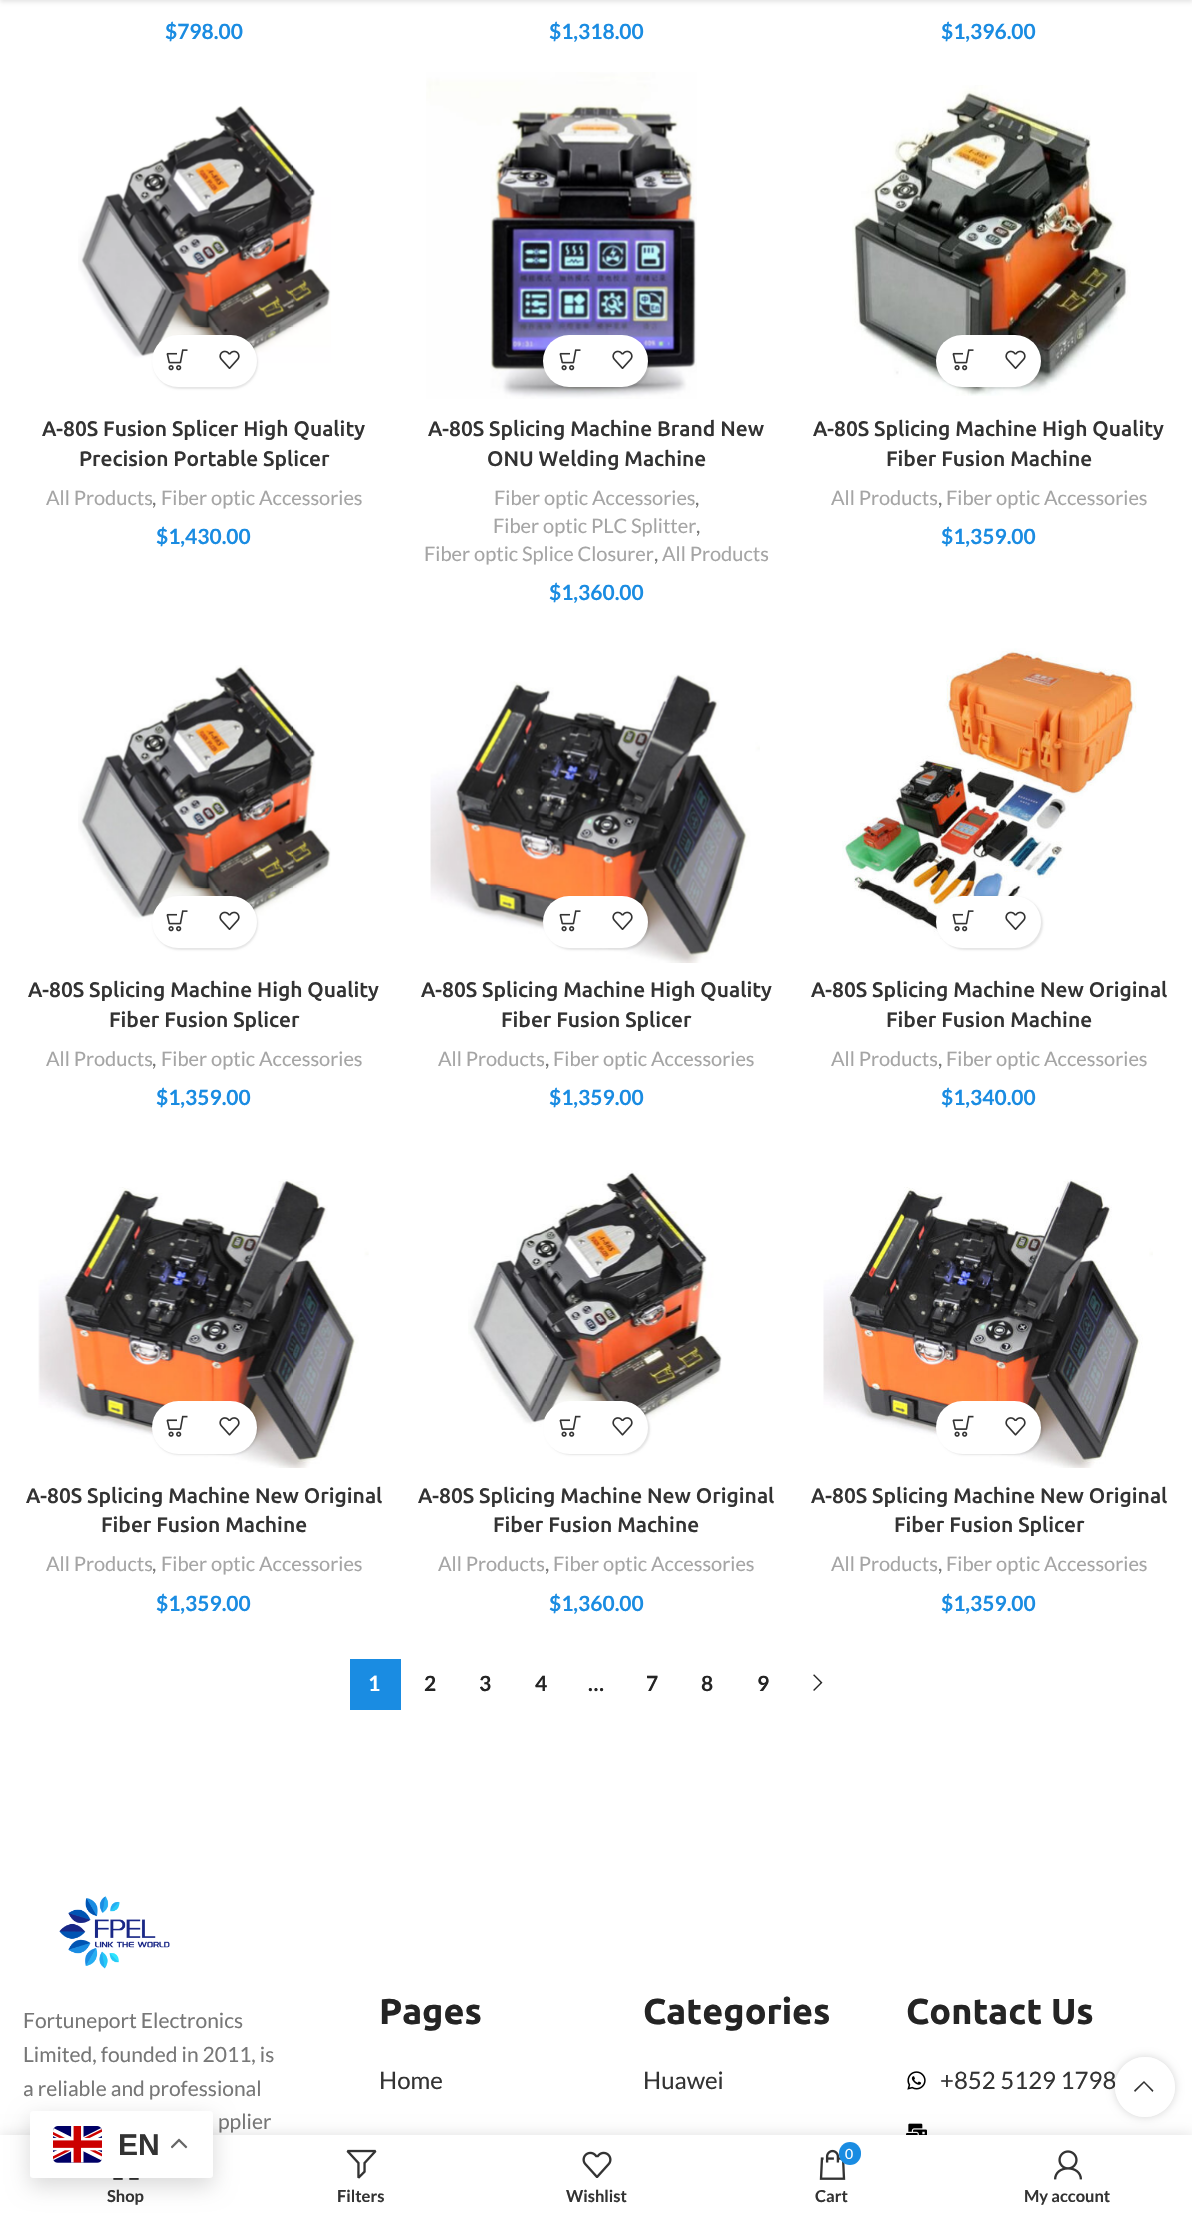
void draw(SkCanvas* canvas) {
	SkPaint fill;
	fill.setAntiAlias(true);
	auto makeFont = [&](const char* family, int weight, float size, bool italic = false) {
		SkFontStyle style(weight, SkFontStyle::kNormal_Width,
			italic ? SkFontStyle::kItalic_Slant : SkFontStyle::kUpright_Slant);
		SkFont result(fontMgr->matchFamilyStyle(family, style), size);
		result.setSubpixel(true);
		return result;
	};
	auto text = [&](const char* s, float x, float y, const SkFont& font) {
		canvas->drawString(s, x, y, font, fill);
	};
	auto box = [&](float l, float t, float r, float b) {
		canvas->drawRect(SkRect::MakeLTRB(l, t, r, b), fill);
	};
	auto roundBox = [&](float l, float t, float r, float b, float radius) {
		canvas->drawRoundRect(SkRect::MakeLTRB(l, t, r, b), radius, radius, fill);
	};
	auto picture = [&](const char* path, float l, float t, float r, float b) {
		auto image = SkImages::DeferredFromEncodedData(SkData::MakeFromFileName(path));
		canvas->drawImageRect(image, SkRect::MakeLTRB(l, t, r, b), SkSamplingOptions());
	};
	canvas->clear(0xFFFFFFFF);
	fill.setColor(0x1A000000);
	fill.setMaskFilter(SkMaskFilter::MakeBlur(kNormal_SkBlurStyle, 2));
	canvas->drawRect(SkRect::MakeLTRB(0, -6, 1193, 2), fill);
	fill.setMaskFilter(nullptr);
	picture("image0.png", 78, 106, 331, 363);
	fill.setMaskFilter(SkMaskFilter::MakeBlur(kNormal_SkBlurStyle, 1));
	canvas->drawRoundRect(SkRect::MakeLTRB(153, 336, 258, 389), 26.5f, 26.5f, fill);
	fill.setMaskFilter(nullptr);
	fill.setColor(0xFFFFFFFF);
	roundBox(152, 335, 257, 387, 26);
	picture("image1.png", 166, 349, 188, 371);
	picture("image2.png", 219, 350, 240, 369);
	picture("image3.png", 426, 72, 697, 399);
	fill.setColor(0x1A000000);
	fill.setMaskFilter(SkMaskFilter::MakeBlur(kNormal_SkBlurStyle, 1));
	canvas->drawRoundRect(SkRect::MakeLTRB(545, 336, 650, 389), 26.5f, 26.5f, fill);
	fill.setMaskFilter(nullptr);
	fill.setColor(0xFFFFFFFF);
	roundBox(543, 335, 648, 387, 26);
	picture("image1.png", 559, 349, 581, 371);
	picture("image2.png", 612, 350, 633, 369);
	picture("image4.png", 852, 85, 1131, 396);
	fill.setColor(0x1A000000);
	fill.setMaskFilter(SkMaskFilter::MakeBlur(kNormal_SkBlurStyle, 1));
	canvas->drawRoundRect(SkRect::MakeLTRB(938, 336, 1043, 389), 26.5f, 26.5f, fill);
	fill.setMaskFilter(nullptr);
	fill.setColor(0xFFFFFFFF);
	roundBox(936, 335, 1041, 387, 26);
	picture("image1.png", 952, 349, 974, 371);
	picture("image2.png", 1005, 350, 1026, 369);
	picture("image5.png", 78, 665, 331, 924);
	fill.setColor(0x1A000000);
	fill.setMaskFilter(SkMaskFilter::MakeBlur(kNormal_SkBlurStyle, 1));
	canvas->drawRoundRect(SkRect::MakeLTRB(153, 897, 258, 950), 26.5f, 26.5f, fill);
	fill.setMaskFilter(nullptr);
	fill.setColor(0xFFFFFFFF);
	roundBox(152, 896, 257, 948, 26);
	picture("image1.png", 166, 910, 188, 932);
	picture("image2.png", 219, 911, 240, 930);
	picture("image6.png", 430, 674, 760, 963);
	fill.setColor(0x1A000000);
	fill.setMaskFilter(SkMaskFilter::MakeBlur(kNormal_SkBlurStyle, 1));
	canvas->drawRoundRect(SkRect::MakeLTRB(545, 897, 650, 950), 26.5f, 26.5f, fill);
	fill.setMaskFilter(nullptr);
	fill.setColor(0xFFFFFFFF);
	roundBox(543, 896, 648, 948, 26);
	picture("image1.png", 559, 910, 581, 932);
	picture("image2.png", 612, 911, 633, 930);
	picture("image7.png", 842, 648, 1137, 945);
	fill.setColor(0x1A000000);
	fill.setMaskFilter(SkMaskFilter::MakeBlur(kNormal_SkBlurStyle, 1));
	canvas->drawRoundRect(SkRect::MakeLTRB(938, 897, 1043, 950), 26.5f, 26.5f, fill);
	fill.setMaskFilter(nullptr);
	fill.setColor(0xFFFFFFFF);
	roundBox(936, 896, 1041, 948, 26);
	picture("image1.png", 952, 910, 974, 932);
	picture("image2.png", 1005, 911, 1026, 930);
	picture("image8.png", 38, 1179, 369, 1468);
	fill.setColor(0x1A000000);
	fill.setMaskFilter(SkMaskFilter::MakeBlur(kNormal_SkBlurStyle, 1));
	canvas->drawRoundRect(SkRect::MakeLTRB(153, 1403, 258, 1455), 26, 26, fill);
	fill.setMaskFilter(nullptr);
	fill.setColor(0xFFFFFFFF);
	roundBox(152, 1401, 257, 1454, 26.5f);
	picture("image9.png", 166, 1415, 188, 1437);
	picture("image10.png", 219, 1417, 240, 1436);
	picture("image11.png", 468, 1170, 722, 1430);
	fill.setColor(0x1A000000);
	fill.setMaskFilter(SkMaskFilter::MakeBlur(kNormal_SkBlurStyle, 1));
	canvas->drawRoundRect(SkRect::MakeLTRB(545, 1403, 650, 1455), 26, 26, fill);
	fill.setMaskFilter(nullptr);
	fill.setColor(0xFFFFFFFF);
	roundBox(543, 1401, 648, 1454, 26.5f);
	picture("image9.png", 559, 1415, 581, 1437);
	picture("image10.png", 612, 1417, 633, 1436);
	picture("image12.png", 823, 1179, 1153, 1468);
	fill.setColor(0x1A000000);
	fill.setMaskFilter(SkMaskFilter::MakeBlur(kNormal_SkBlurStyle, 1));
	canvas->drawRoundRect(SkRect::MakeLTRB(938, 1403, 1043, 1455), 26, 26, fill);
	fill.setMaskFilter(nullptr);
	fill.setColor(0xFFFFFFFF);
	roundBox(936, 1401, 1041, 1454, 26.5f);
	picture("image9.png", 952, 1415, 974, 1437);
	picture("image10.png", 1005, 1417, 1026, 1436);
	fill.setColor(0xFF1A8CE2);
	box(350, 1659, 401, 1710);
	picture("image13.png", 813, 1674, 823, 1691);
	picture("image14.png", 59, 1896, 170, 1969);
	picture("image15.png", 907, 2071, 926, 2090);
	picture("image16.png", 906, 2123, 927, 2135);
	canvas->save();
	canvas->clipPath(SkPathBuilder(SkPathFillType::kEvenOdd).moveTo(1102, 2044).lineTo(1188, 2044).lineTo(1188, 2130).lineTo(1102, 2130).close().moveTo(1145, 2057).cubicTo(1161.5f, 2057, 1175, 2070.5f, 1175, 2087).cubicTo(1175, 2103.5f, 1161.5f, 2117, 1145, 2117).cubicTo(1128.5f, 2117, 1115, 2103.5f, 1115, 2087).cubicTo(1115, 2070.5f, 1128.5f, 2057, 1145, 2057).close().detach(), true);
	fill.setColor(0x2B000000);
	fill.setMaskFilter(SkMaskFilter::MakeBlur(kNormal_SkBlurStyle, 4));
	canvas->drawRoundRect(SkRect::MakeLTRB(1115, 2057, 1175, 2117), 30, 30, fill);
	fill.setMaskFilter(nullptr);
	canvas->restore();
	auto font1 = makeFont("Lato", 700, 21);
	fill.setColor(0xFF1A8CE2);
	text("$798.00", 165, 39, font1);
	text("$1,318.00", 549, 39, font1);
	text("$1,396.00", 941, 39, font1);
	auto font2 = makeFont("Ubuntu", 500, 21);
	fill.setColor(0xFF333333);
	text("A-80S Fusion Splicer High Quality", 42, 436, font2);
	text("Precision Portable Splicer", 79, 466, font2);
	auto font3 = makeFont("Lato", 400, 20);
	fill.setColor(0xFFA5A5A5);
	text("All Products", 46, 505, font3);
	fill.setColor(0xFF777777);
	text(",", 152, 505, font3);
	fill.setColor(0xFFA5A5A5);
	text("Fiber optic Accessories", 161, 505, font3);
	fill.setColor(0xFF1A8CE2);
	text("$1,430.00", 156, 544, font1);
	fill.setColor(0xFF333333);
	text("A-80S Splicing Machine Brand New", 428, 436, font2);
	text("ONU Welding Machine", 487, 466, font2);
	fill.setColor(0xFFA5A5A5);
	text("Fiber optic Accessories", 494, 505, font3);
	fill.setColor(0xFF777777);
	text(",", 695, 505, font3);
	fill.setColor(0xFFA5A5A5);
	text("Fiber optic PLC Splitter", 493, 533, font3);
	fill.setColor(0xFF777777);
	text(",", 696, 533, font3);
	fill.setColor(0xFFA5A5A5);
	text("Fiber optic Splice Closurer", 424, 561, font3);
	fill.setColor(0xFF777777);
	text(",", 654, 561, font3);
	fill.setColor(0xFFA5A5A5);
	text("All Products", 662, 561, font3);
	fill.setColor(0xFF1A8CE2);
	text("$1,360.00", 549, 600, font1);
	fill.setColor(0xFF333333);
	text("A-80S Splicing Machine High Quality", 813, 436, font2);
	text("Fiber Fusion Machine", 886, 466, font2);
	fill.setColor(0xFFA5A5A5);
	text("All Products", 831, 505, font3);
	fill.setColor(0xFF777777);
	text(",", 938, 505, font3);
	fill.setColor(0xFFA5A5A5);
	text("Fiber optic Accessories", 946, 505, font3);
	fill.setColor(0xFF1A8CE2);
	text("$1,359.00", 941, 544, font1);
	fill.setColor(0xFF333333);
	text("A-80S Splicing Machine High Quality", 28, 997, font2);
	text("Fiber Fusion Splicer", 109, 1027, font2);
	fill.setColor(0xFFA5A5A5);
	text("All Products", 46, 1066, font3);
	fill.setColor(0xFF777777);
	text(",", 152, 1066, font3);
	fill.setColor(0xFFA5A5A5);
	text("Fiber optic Accessories", 161, 1066, font3);
	fill.setColor(0xFF1A8CE2);
	text("$1,359.00", 156, 1105, font1);
	fill.setColor(0xFF333333);
	text("A-80S Splicing Machine High Quality", 421, 997, font2);
	text("Fiber Fusion Splicer", 501, 1027, font2);
	fill.setColor(0xFFA5A5A5);
	text("All Products", 438, 1066, font3);
	fill.setColor(0xFF777777);
	text(",", 545, 1066, font3);
	fill.setColor(0xFFA5A5A5);
	text("Fiber optic Accessories", 553, 1066, font3);
	fill.setColor(0xFF1A8CE2);
	text("$1,359.00", 549, 1105, font1);
	fill.setColor(0xFF333333);
	text("A-80S Splicing Machine New Original", 811, 997, font2);
	text("Fiber Fusion Machine", 886, 1027, font2);
	fill.setColor(0xFFA5A5A5);
	text("All Products", 831, 1066, font3);
	fill.setColor(0xFF777777);
	text(",", 938, 1066, font3);
	fill.setColor(0xFFA5A5A5);
	text("Fiber optic Accessories", 946, 1066, font3);
	fill.setColor(0xFF1A8CE2);
	text("$1,340.00", 941, 1105, font1);
	fill.setColor(0xFF333333);
	text("A-80S Splicing Machine New Original", 26, 1503, font2);
	text("Fiber Fusion Machine", 101, 1532, font2);
	fill.setColor(0xFFA5A5A5);
	text("All Products", 46, 1571, font3);
	fill.setColor(0xFF777777);
	text(",", 152, 1571, font3);
	fill.setColor(0xFFA5A5A5);
	text("Fiber optic Accessories", 161, 1571, font3);
	fill.setColor(0xFF1A8CE2);
	text("$1,359.00", 156, 1611, font1);
	fill.setColor(0xFF333333);
	text("A-80S Splicing Machine New Original", 418, 1503, font2);
	text("Fiber Fusion Machine", 493, 1532, font2);
	fill.setColor(0xFFA5A5A5);
	text("All Products", 438, 1571, font3);
	fill.setColor(0xFF777777);
	text(",", 545, 1571, font3);
	fill.setColor(0xFFA5A5A5);
	text("Fiber optic Accessories", 553, 1571, font3);
	fill.setColor(0xFF1A8CE2);
	text("$1,360.00", 549, 1611, font1);
	fill.setColor(0xFF333333);
	text("A-80S Splicing Machine New Original", 811, 1503, font2);
	text("Fiber Fusion Splicer", 894, 1532, font2);
	fill.setColor(0xFFA5A5A5);
	text("All Products", 831, 1571, font3);
	fill.setColor(0xFF777777);
	text(",", 938, 1571, font3);
	fill.setColor(0xFFA5A5A5);
	text("Fiber optic Accessories", 946, 1571, font3);
	fill.setColor(0xFF1A8CE2);
	text("$1,359.00", 941, 1611, font1);
	fill.setColor(0xFFFFFFFF);
	text("1", 368, 1691, font1);
	fill.setColor(0xFF242424);
	text("2", 424, 1691, font1);
	text("3", 479, 1691, font1);
	text("4", 535, 1691, font1);
	text("…", 588, 1691, font1);
	text("7", 646, 1691, font1);
	text("8", 701, 1691, font1);
	text("9", 757, 1691, font1);
	auto font4 = makeFont("Lato", 400, 21);
	fill.setColor(0xFF777777);
	text("Fortuneport Electronics", 23, 2028, font4);
	text("Limited, founded in 2011, is", 23, 2062, font4);
	text("a reliable and professional", 23, 2096, font4);
	text("pplier", 218, 2129, font4);
	auto font5 = makeFont("Ubuntu", 700, 36);
	fill.setColor(0xFF242424);
	text("Pages", 379, 2024, font5);
	auto font6 = makeFont("Lato", 400, 24);
	fill.setColor(0xFF333333);
	text("Home", 379, 2089, font6);
	fill.setColor(0xFF242424);
	text("Categories", 643, 2024, font5);
	fill.setColor(0xFF333333);
	text("Huawei", 643, 2089, font6);
	fill.setColor(0xFF242424);
	text("Contact Us", 906, 2024, font5);
	fill.setColor(0xFF333333);
	text("+852 5129 1798", 940, 2089, font6);
	fill.setColor(0xE6FFFFFF);
	canvas->drawCircle(1145, 2087, 30, fill);
	fill.setColor(0xFF333333);
	canvas->drawPath(SkPathBuilder().moveTo(1152.5f, 2092).lineTo(1153.5f, 2090.5f).lineTo(1144, 2081).lineTo(1134, 2090.5f).lineTo(1135, 2092).lineTo(1144, 2083).close().detach(), fill);
	fill.setColor(0x1F000000);
	fill.setMaskFilter(SkMaskFilter::MakeBlur(kNormal_SkBlurStyle, 7));
	canvas->drawRect(SkRect::MakeLTRB(0, 2135, 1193, 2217), fill);
	fill.setMaskFilter(nullptr);
	fill.setColor(0xFFFFFFFF);
	box(0, 2135, 1192, 2216);
	picture("image19.png", 113, 2178, 139, 2180);
	fill.setColor(0x26000000);
	fill.setMaskFilter(SkMaskFilter::MakeBlur(kNormal_SkBlurStyle, 11));
	canvas->drawRoundRect(SkRect::MakeLTRB(30, 2118, 213, 2186), 3, 3, fill);
	fill.setMaskFilter(nullptr);
	fill.setColor(0xFFFFFFFF);
	roundBox(30, 2111, 213, 2178, 3);
	picture("image18.png", 171, 2138, 188, 2149);
	auto font7 = makeFont("Liberation Sans", 700, 30);
	fill.setColor(0xFF333333);
	text("EN", 118, 2155, font7);
	picture("image17.png", 53, 2126, 102, 2163);
	auto font8 = makeFont("Lato", 700, 16.5f);
	text("Shop", 107, 2202, font8);
	picture("image20.png", 346, 2149, 377, 2179);
	text("Filters", 337, 2202, font8);
	picture("image21.png", 582, 2151, 612, 2178);
	text("Wishlist", 566, 2202, font8);
	picture("image22.png", 819, 2149, 846, 2180);
	fill.setColor(0xFF1A8CE2);
	roundBox(839, 2142, 861, 2165, 11);
	auto font9 = makeFont("Lato", 400, 14);
	fill.setColor(0xFFFFFFFF);
	text("0", 845, 2159, font9);
	fill.setColor(0xFF333333);
	text("Cart", 815, 2202, font8);
	picture("image23.png", 1054, 2150, 1082, 2180);
	text("My account", 1024, 2202, font8);
}
